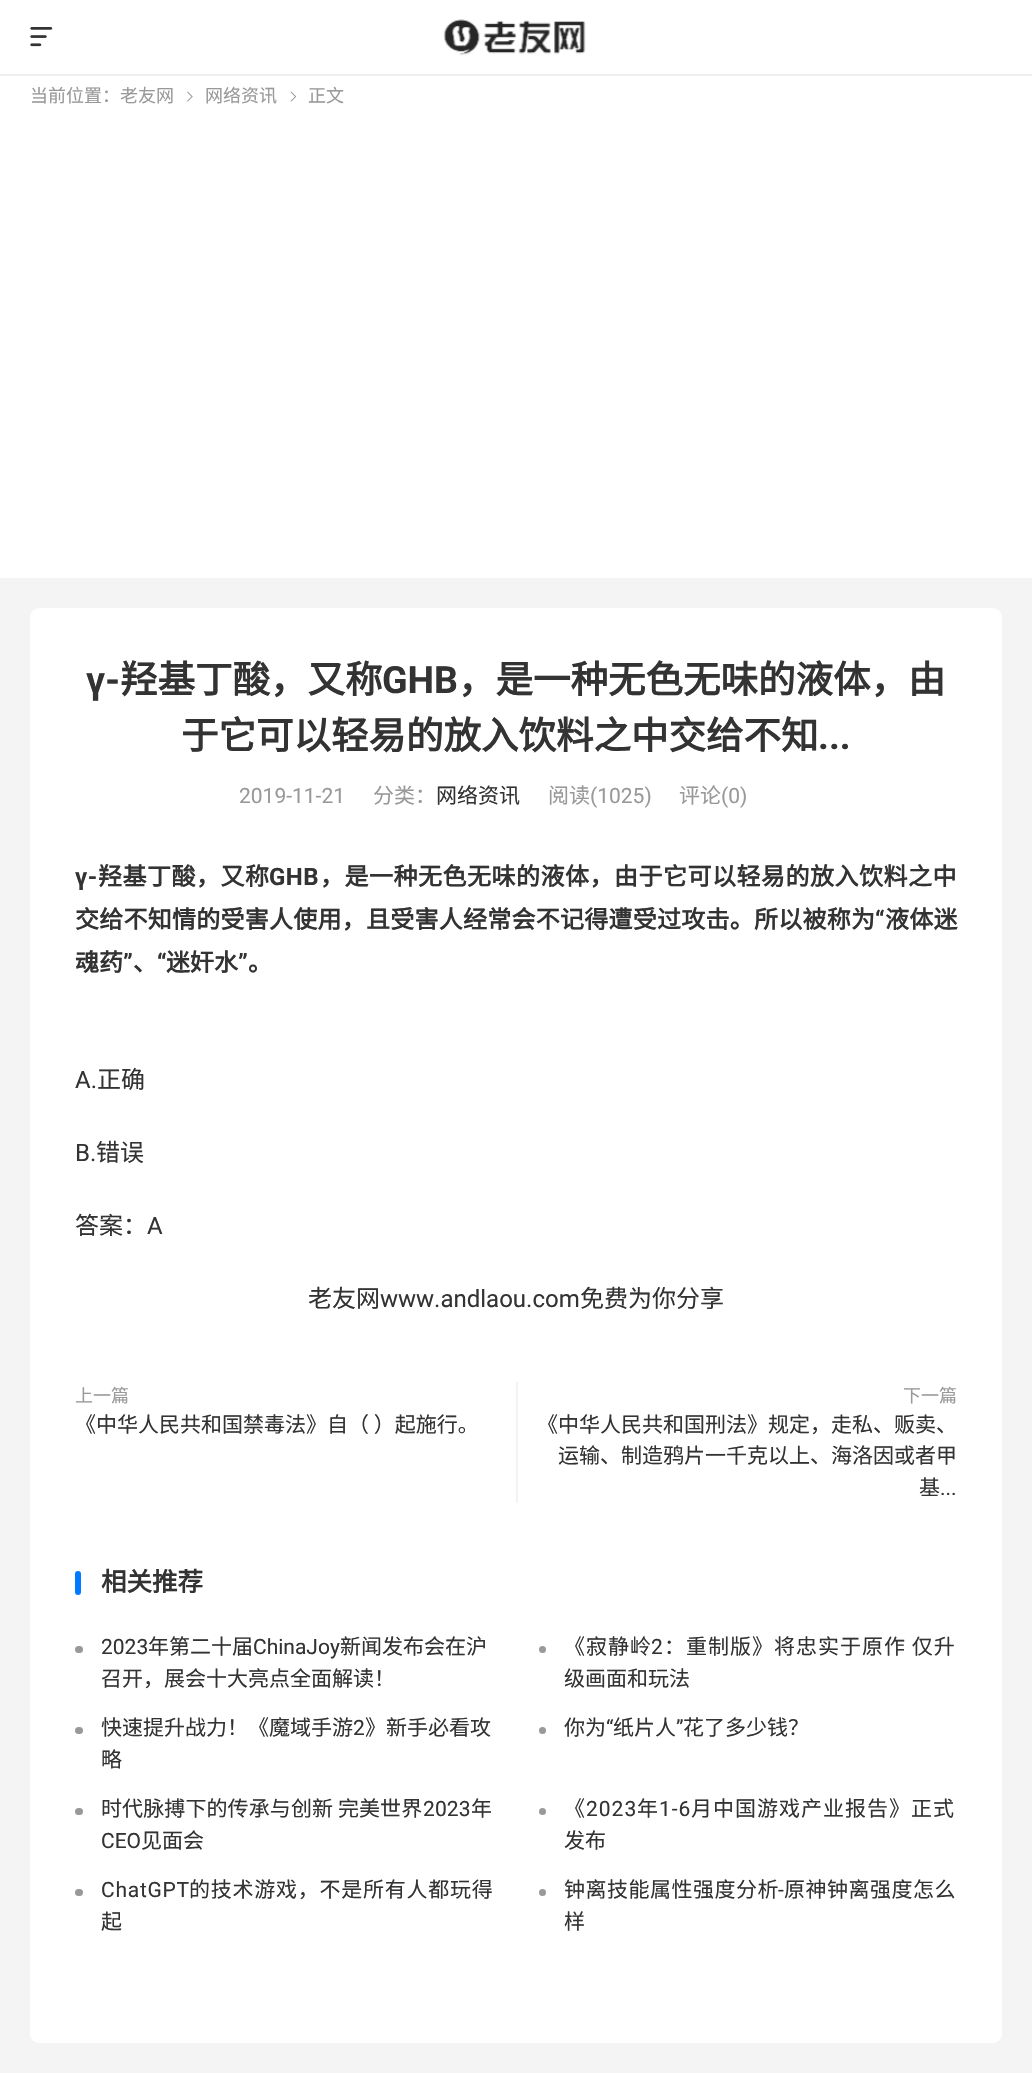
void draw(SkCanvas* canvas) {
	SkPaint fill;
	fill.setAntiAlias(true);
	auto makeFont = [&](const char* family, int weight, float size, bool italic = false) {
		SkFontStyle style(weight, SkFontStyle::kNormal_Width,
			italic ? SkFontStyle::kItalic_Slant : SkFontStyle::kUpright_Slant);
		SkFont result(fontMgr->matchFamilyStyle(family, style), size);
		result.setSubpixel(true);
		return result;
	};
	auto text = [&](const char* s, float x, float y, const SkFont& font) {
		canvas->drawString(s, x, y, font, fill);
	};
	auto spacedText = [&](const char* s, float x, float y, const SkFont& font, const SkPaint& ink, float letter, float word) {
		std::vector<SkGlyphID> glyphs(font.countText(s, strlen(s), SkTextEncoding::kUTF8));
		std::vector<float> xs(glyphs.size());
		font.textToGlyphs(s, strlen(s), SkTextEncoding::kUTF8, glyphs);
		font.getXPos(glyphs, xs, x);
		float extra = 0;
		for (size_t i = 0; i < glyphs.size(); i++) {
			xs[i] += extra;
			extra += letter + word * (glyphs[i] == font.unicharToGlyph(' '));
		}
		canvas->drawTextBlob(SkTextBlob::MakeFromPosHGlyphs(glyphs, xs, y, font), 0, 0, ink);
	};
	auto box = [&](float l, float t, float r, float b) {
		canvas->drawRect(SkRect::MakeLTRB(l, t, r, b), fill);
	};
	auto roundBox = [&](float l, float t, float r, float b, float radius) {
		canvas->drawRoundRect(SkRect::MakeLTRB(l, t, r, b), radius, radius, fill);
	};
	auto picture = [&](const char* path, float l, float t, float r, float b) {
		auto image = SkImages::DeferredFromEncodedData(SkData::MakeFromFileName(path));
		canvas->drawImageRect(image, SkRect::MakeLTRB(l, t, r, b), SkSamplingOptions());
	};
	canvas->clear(0xFFF4F4F4);
	fill.setColor(0xFFFFFFFF);
	box(0, 0, 1032, 578);
	picture("image0.png", 443, 19, 586, 56);
	fill.setColor(0xFFEEEEEE);
	roundBox(0, 74, 1032, 76, 1);
	picture("image1.png", 30, 27, 53, 47);
	picture("image2.png", 187, 91, 193, 102);
	picture("image3.png", 290, 91, 297, 102);
	fill.setColor(0xFFFFFFFF);
	roundBox(30, 608, 1002, 2043, 9);
	fill.setColor(0xFFF3F3F3);
	box(516, 1382, 518, 1503);
	fill.setColor(0xFF007BFF);
	roundBox(75, 1571, 81, 1595, 3);
	fill.setColor(0xFF999999);
	roundBox(75, 1646, 83, 1653, 3.5f);
	canvas->drawCircle(542.5f, 1649.5f, 3.5f, fill);
	roundBox(75, 1727, 83, 1734, 3.5f);
	canvas->drawCircle(542.5f, 1730.5f, 3.5f, fill);
	roundBox(75, 1808, 83, 1815, 3.5f);
	canvas->drawCircle(542.5f, 1811.5f, 3.5f, fill);
	roundBox(75, 1889, 83, 1896, 3.5f);
	canvas->drawCircle(542.5f, 1892.5f, 3.5f, fill);
	auto font1 = makeFont("Noto Sans CJK SC", 400, 18);
	text("当前位置：老友网", 30, 102, font1);
	text("网络资讯", 205, 102, font1);
	text("正文", 308, 102, font1);
	auto font2 = makeFont("Roboto", 700, 37.5f);
	fill.setColor(0xFF333333);
	text("γ-", 86, 693, font2);
	auto font3 = makeFont("Noto Sans CJK SC", 700, 37.5f);
	text("羟基丁酸，又称", 120, 693, font3);
	text("GHB", 382, 693, font2);
	text("，是一种无色无味的液体，由", 458, 693, font3);
	text("于它可以轻易的放入饮料之中交给不知", 181, 749, font3);
	text("...", 818, 749, font2);
	auto font4 = makeFont("Roboto", 400, 21);
	fill.setColor(0xFF999999);
	text("2019-11-21", 239, 803, font4);
	auto font5 = makeFont("Noto Sans CJK SC", 400, 21);
	text("分类：", 373, 803, font5);
	fill.setColor(0xFF333333);
	text("网络资讯", 436, 803, font5);
	fill.setColor(0xFF999999);
	text("阅读", 548, 803, font5);
	text("(1025)", 590, 803, font4);
	text("评论", 679, 803, font5);
	text("(0)", 721, 803, font4);
	auto font6 = makeFont("Roboto", 700, 24);
	fill.setColor(0xFF333333);
	spacedText("γ-", 75, 885, font6, fill, 0.5f, 0);
	auto font7 = makeFont("Noto Sans CJK SC", 700, 24);
	spacedText("羟基丁酸，又称", 98, 885, font7, fill, 0.5f, 0);
	spacedText("GHB", 269, 885, font6, fill, 0.5f, 0);
	spacedText("，是一种无色无味的液体，由于它可以轻易的放入饮料之中", 320, 885, font7, fill, 0.5f, 0);
	spacedText("交给不知情的受害人使用，且受害人经常会不记得遭受过攻击。所以被称为", 75, 928, font7, fill, 0.25f, 0);
	spacedText("“", 875, 928, font6, fill, 0.25f, 0);
	spacedText("液体迷", 885, 928, font7, fill, 0.25f, 0);
	text("魂药", 75, 971, font7);
	text("”", 123, 971, font6);
	text("“", 157, 971, font6);
	text("迷奸水", 166, 971, font7);
	text("”", 238, 971, font6);
	text("、", 133, 971, font7);
	text("。", 248, 971, font7);
	auto font8 = makeFont("Roboto", 400, 24);
	text("A.", 75, 1088, font8);
	auto font9 = makeFont("Noto Sans CJK SC", 400, 24);
	text("正确", 97, 1088, font9);
	text("B.", 75, 1161, font8);
	text("错误", 96, 1161, font9);
	text("答案：", 75, 1234, font9);
	text("A", 147, 1234, font8);
	text("老友网", 308, 1307, font9);
	text("www.andlaou.com", 380, 1307, font8);
	text("免费为你分享", 580, 1307, font9);
	fill.setColor(0xFF999999);
	text("上一篇", 75, 1402, font1);
	fill.setColor(0xFF333333);
	text("《中华人民共和国禁毒法》自（ ）起施行。", 75, 1432, font5);
	fill.setColor(0xFF999999);
	text("下一篇", 903, 1402, font1);
	fill.setColor(0xFF333333);
	text("《中华人民共和国刑法》规定，走私、贩卖、", 537, 1432, font5);
	text("运输、制造鸦片一千克以上、海洛因或者甲", 558, 1463, font5);
	text("基", 919, 1495, font5);
	text("...", 940, 1495, font4);
	auto font10 = makeFont("Noto Sans CJK SC", 700, 25.5f);
	text("相关推荐", 101, 1591, font10);
	text("2023", 101, 1654, font4);
	text("年第二十届", 148, 1654, font5);
	text("ChinaJoy", 253, 1654, font4);
	text("新闻发布会在沪", 340, 1654, font5);
	text("召开，展会十大亮点全面解读！", 101, 1686, font5);
	spacedText("《寂静岭", 564, 1654, font5, fill, 1, 0);
	spacedText("2", 651, 1654, font4, fill, 1, 0);
	spacedText("：重制版》将忠实于原作 仅升", 664, 1654, font5, fill, 1, 0);
	text("级画面和玩法", 564, 1686, font5);
	text("快速提升战力！《魔域手游", 101, 1735, font5);
	text("2", 353, 1735, font4);
	text("》新手必看攻", 365, 1735, font5);
	text("略", 101, 1767, font5);
	text("你为", 564, 1735, font5);
	text("“", 606, 1735, font4);
	text("纸片人", 613, 1735, font5);
	text("”", 676, 1735, font4);
	text("花了多少钱？", 683, 1735, font5);
	spacedText("时代脉搏下的传承与创新 完美世界", 101, 1816, font5, fill, 0.1f, 0);
	spacedText("2023", 423, 1816, font4, fill, 0.1f, 0);
	spacedText("年", 471, 1816, font5, fill, 0.1f, 0);
	text("CEO", 101, 1848, font4);
	text("见面会", 141, 1848, font5);
	spacedText("《", 564, 1816, font5, fill, 1, 0);
	spacedText("2023", 586, 1816, font4, fill, 1, 0);
	spacedText("年", 637, 1816, font5, fill, 1, 0);
	spacedText("1-6", 659, 1816, font4, fill, 1, 0);
	spacedText("月中国游戏产业报告》正式", 691, 1816, font5, fill, 1, 0);
	text("发布", 564, 1848, font5);
	spacedText("ChatGPT", 101, 1897, font4, fill, 0.75f, 0);
	spacedText("的技术游戏，不是所有人都玩得", 189, 1897, font5, fill, 0.75f, 0);
	text("起", 101, 1929, font5);
	spacedText("钟离技能属性强度分析", 564, 1897, font5, fill, 0.5f, 0);
	spacedText("-", 778, 1897, font4, fill, 0.5f, 0);
	spacedText("原神钟离强度怎么", 784, 1897, font5, fill, 0.5f, 0);
	text("样", 564, 1929, font5);
}
